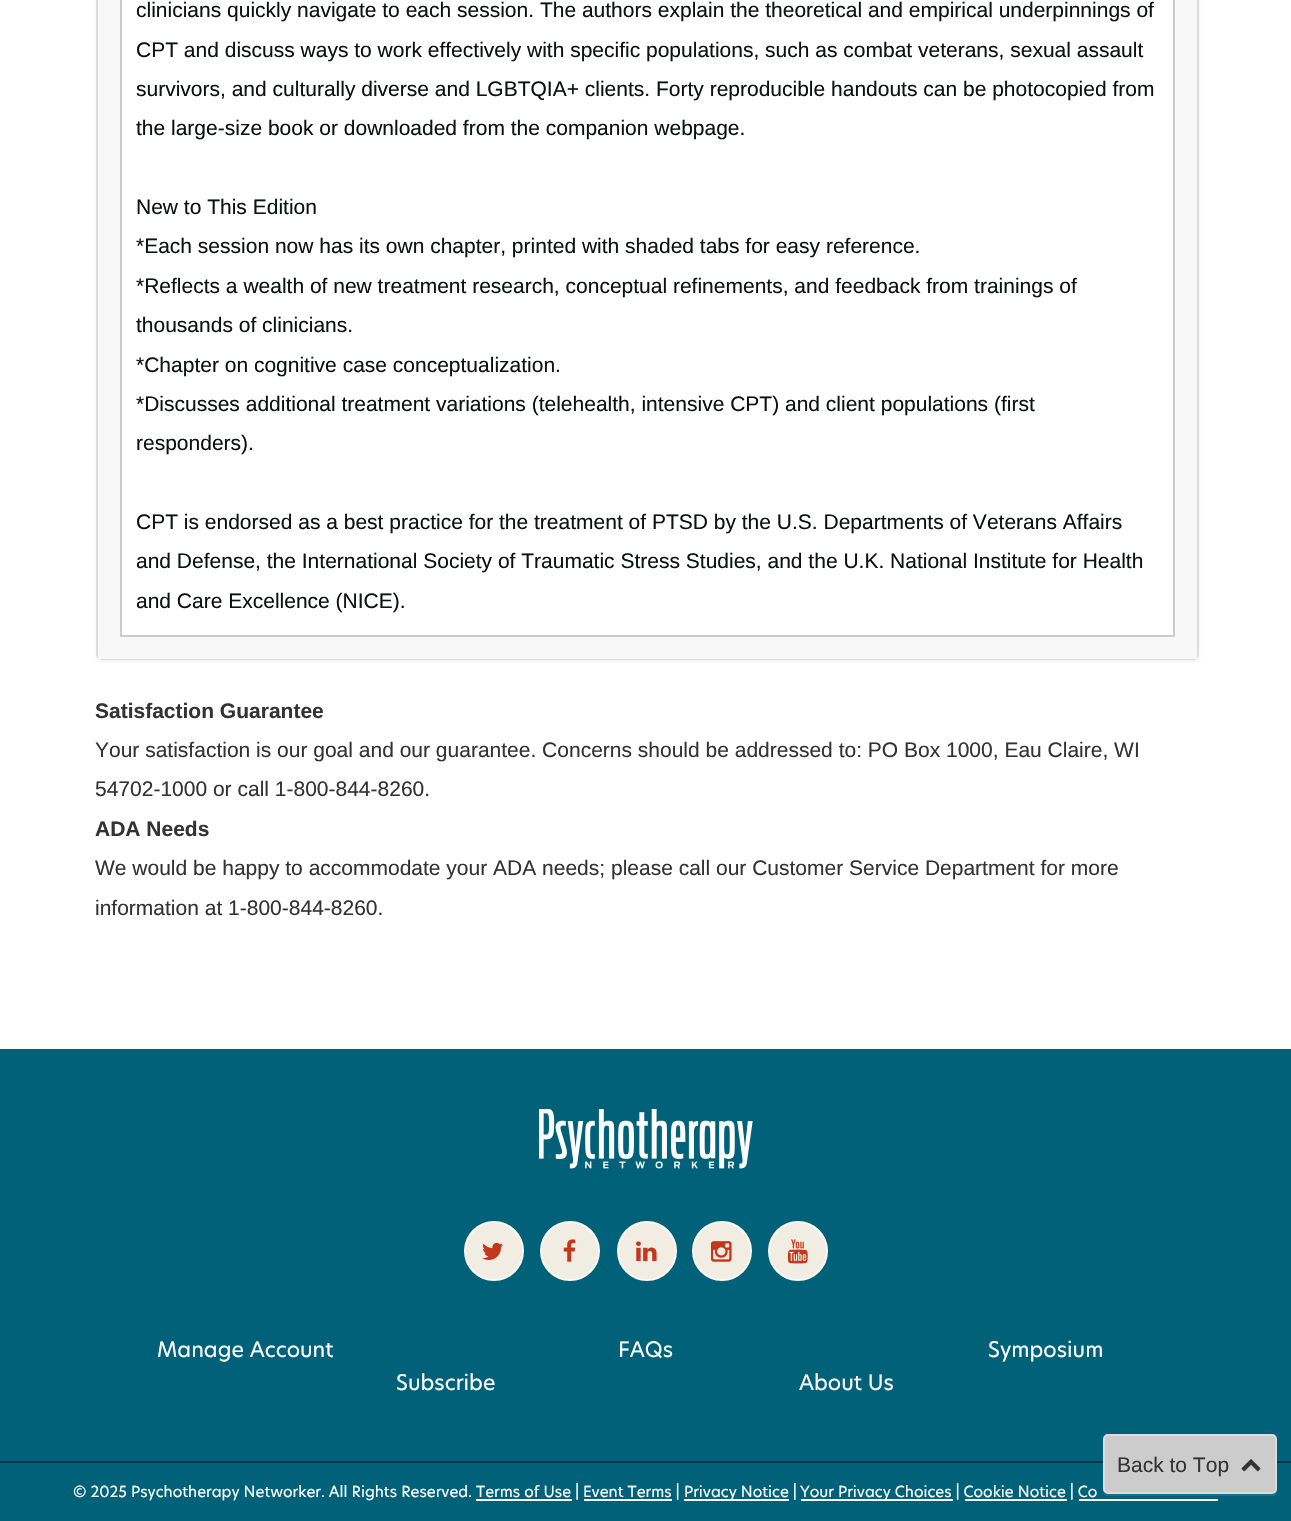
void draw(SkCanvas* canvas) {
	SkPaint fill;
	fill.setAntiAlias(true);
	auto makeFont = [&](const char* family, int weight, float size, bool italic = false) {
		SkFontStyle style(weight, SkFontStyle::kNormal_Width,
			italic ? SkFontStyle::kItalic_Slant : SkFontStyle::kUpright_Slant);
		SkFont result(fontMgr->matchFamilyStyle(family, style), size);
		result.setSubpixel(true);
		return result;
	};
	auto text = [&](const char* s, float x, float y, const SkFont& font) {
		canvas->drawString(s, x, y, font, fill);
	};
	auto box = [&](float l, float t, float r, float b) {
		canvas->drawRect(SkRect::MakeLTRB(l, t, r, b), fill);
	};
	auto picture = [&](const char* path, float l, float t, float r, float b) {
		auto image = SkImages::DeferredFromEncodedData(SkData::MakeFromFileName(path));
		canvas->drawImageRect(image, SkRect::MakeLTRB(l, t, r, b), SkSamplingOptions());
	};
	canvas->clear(0xFFFFFFFF);
	fill.setColor(0x0D000000);
	fill.setMaskFilter(SkMaskFilter::MakeBlur(kNormal_SkBlurStyle, 1.5f));
	canvas->drawRoundRect(SkRect::MakeLTRB(96, -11, 1199, 662), 6, 6, fill);
	fill.setMaskFilter(nullptr);
	fill.setStyle(SkPaint::kStroke_Style);
	fill.setStrokeWidth(2);
	fill.setColor(0xFFDDDDDD);
	canvas->drawRoundRect(SkRect::MakeLTRB(97, -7, 1198, 659), 5, 5, fill);
	fill.setStyle(SkPaint::kFill_Style);
	fill.setColor(0xFFF8F8F8);
	box(98, 0, 1197, 659);
	fill.setColor(0xFFCCCCCC);
	box(120, 635, 1175, 637);
	fill.setColor(0xFFFFFFFF);
	box(122, 0, 1173, 635);
	fill.setColor(0xFFCCCCCC);
	box(1173, 0, 1175, 635);
	box(120, 0, 122, 635);
	fill.setColor(0xFF006179);
	box(0, 1049, 1291, 1521);
	fill.setColor(0xFF013A48);
	box(0, 1461, 1291, 1463);
	fill.setColor(0x1AFFFFFF);
	canvas->drawPath(SkPathBuilder().moveTo(1103, 1492).cubicTo(1103, 1494, 1105, 1496, 1108, 1496).lineTo(1272, 1496).cubicTo(1275, 1496, 1277, 1494, 1277, 1491).lineTo(1277, 1441).lineTo(1276, 1439).lineTo(1276, 1490).cubicTo(1276, 1492, 1274, 1494, 1272, 1494).lineTo(1107, 1494).cubicTo(1105, 1494, 1104, 1493, 1103, 1492).close().detach(), fill);
	fill.setColor(0xFFCCCCCC);
	canvas->drawRoundRect(SkRect::MakeLTRB(1104, 1435, 1276, 1493), 4, 4, fill);
	fill.setStyle(SkPaint::kStroke_Style);
	fill.setColor(0xFFDCDCDC);
	canvas->drawRoundRect(SkRect::MakeLTRB(1104, 1435, 1276, 1493), 4, 4, fill);
	picture("image0.png", 1241, 1459, 1261, 1472);
	picture("image1.png", 539, 1109, 753, 1169);
	fill.setStyle(SkPaint::kFill_Style);
	fill.setColor(0xFFF1EDE2);
	canvas->drawCircle(494, 1251, 29, fill);
	fill.setStyle(SkPaint::kStroke_Style);
	fill.setColor(0xFFFAF8F4);
	canvas->drawCircle(494, 1251, 29, fill);
	picture("image2.png", 482, 1242, 503, 1260);
	fill.setStyle(SkPaint::kFill_Style);
	fill.setColor(0xFFF1EDE2);
	canvas->drawCircle(570, 1251, 29, fill);
	fill.setStyle(SkPaint::kStroke_Style);
	fill.setColor(0xFFFAF8F4);
	canvas->drawCircle(570, 1251, 29, fill);
	picture("image3.png", 563, 1239, 576, 1262);
	fill.setStyle(SkPaint::kFill_Style);
	fill.setColor(0xFFF1EDE2);
	canvas->drawCircle(647, 1251, 29, fill);
	fill.setStyle(SkPaint::kStroke_Style);
	fill.setColor(0xFFFAF8F4);
	canvas->drawCircle(647, 1251, 29, fill);
	picture("image4.png", 636, 1241, 657, 1262);
	fill.setStyle(SkPaint::kFill_Style);
	fill.setColor(0xFFF1EDE2);
	canvas->drawCircle(722, 1251, 29, fill);
	fill.setStyle(SkPaint::kStroke_Style);
	fill.setColor(0xFFFAF8F4);
	canvas->drawCircle(722, 1251, 29, fill);
	picture("image5.png", 711, 1241, 732, 1262);
	fill.setStyle(SkPaint::kFill_Style);
	fill.setColor(0xFFF1EDE2);
	canvas->drawCircle(798, 1251, 29, fill);
	fill.setStyle(SkPaint::kStroke_Style);
	fill.setColor(0xFFFAF8F4);
	canvas->drawCircle(798, 1251, 29, fill);
	picture("image6.png", 787, 1239, 808, 1264);
	fill.setStyle(SkPaint::kFill_Style);
	fill.setColor(0xFFFFFFFF);
	box(684, 1499, 789, 1501);
	box(801, 1499, 953, 1501);
	box(476, 1499, 572, 1501);
	box(584, 1499, 672, 1501);
	box(965, 1499, 1067, 1501);
	box(1079, 1499, 1218, 1501);
	auto font1 = makeFont("Liberation Sans", 400, 21);
	fill.setColor(0xFF0F1111);
	text("clinicians quickly navigate to each session. The authors explain the theoretical and empirical underpinnings of", 136, 17, font1);
	text("CPT and discuss ways to work effectively with specific populations, such as combat veterans, sexual assault", 136, 57, font1);
	text("survivors, and culturally diverse and LGBTQIA+ clients. Forty reproducible handouts can be photocopied from", 136, 96, font1);
	text("the large-size book or downloaded from the companion webpage.", 136, 135, font1);
	text("New to This Edition", 136, 214, font1);
	text("*Each session now has its own chapter, printed with shaded tabs for easy reference.", 136, 253, font1);
	text("*Reflects a wealth of new treatment research, conceptual refinements, and feedback from trainings of", 136, 293, font1);
	text("thousands of clinicians.", 136, 332, font1);
	text("*Chapter on cognitive case conceptualization.", 136, 372, font1);
	text("*Discusses additional treatment variations (telehealth, intensive CPT) and client populations (first", 136, 411, font1);
	text("responders).", 136, 450, font1);
	text("CPT is endorsed as a best practice for the treatment of PTSD by the U.S. Departments of Veterans Affairs", 136, 529, font1);
	text("and Defense, the International Society of Traumatic Stress Studies, and the U.K. National Institute for Health", 136, 568, font1);
	text("and Care Excellence (NICE).", 136, 608, font1);
	auto font2 = makeFont("Liberation Sans", 700, 21);
	fill.setColor(0xFF333333);
	text("Satisfaction Guarantee", 95, 718, font2);
	text("Your satisfaction is our goal and our guarantee. Concerns should be addressed to: PO Box 1000, Eau Claire, WI", 95, 757, font1);
	text("54702-1000 or call 1-800-844-8260.", 95, 796, font1);
	text("ADA Needs", 95, 836, font2);
	text("We would be happy to accommodate your ADA needs; please call our Customer Service Department for more", 95, 875, font1);
	text("information at 1-800-844-8260.", 95, 915, font1);
	text("Back to Top", 1117, 1472, font1);
	auto font3 = makeFont("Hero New", 400, 21);
	fill.setColor(0xFFFFFFFF);
	text("Manage Account", 157, 1357, font3);
	text("FAQs", 618, 1357, font3);
	text("Symposium", 988, 1357, font3);
	text("Subscribe", 396, 1390, font3);
	text("About Us", 799, 1390, font3);
	auto font4 = makeFont("Hero New", 400, 15);
	text("© 2025 Psychotherapy Networker. All Rights Reserved. Terms of Use | Event Terms |", 73, 1497, font4);
	text("Privacy Notice |", 684, 1497, font4);
	text("Your Privacy Choices | Cookie Notice | Co", 800, 1497, font4);
}
